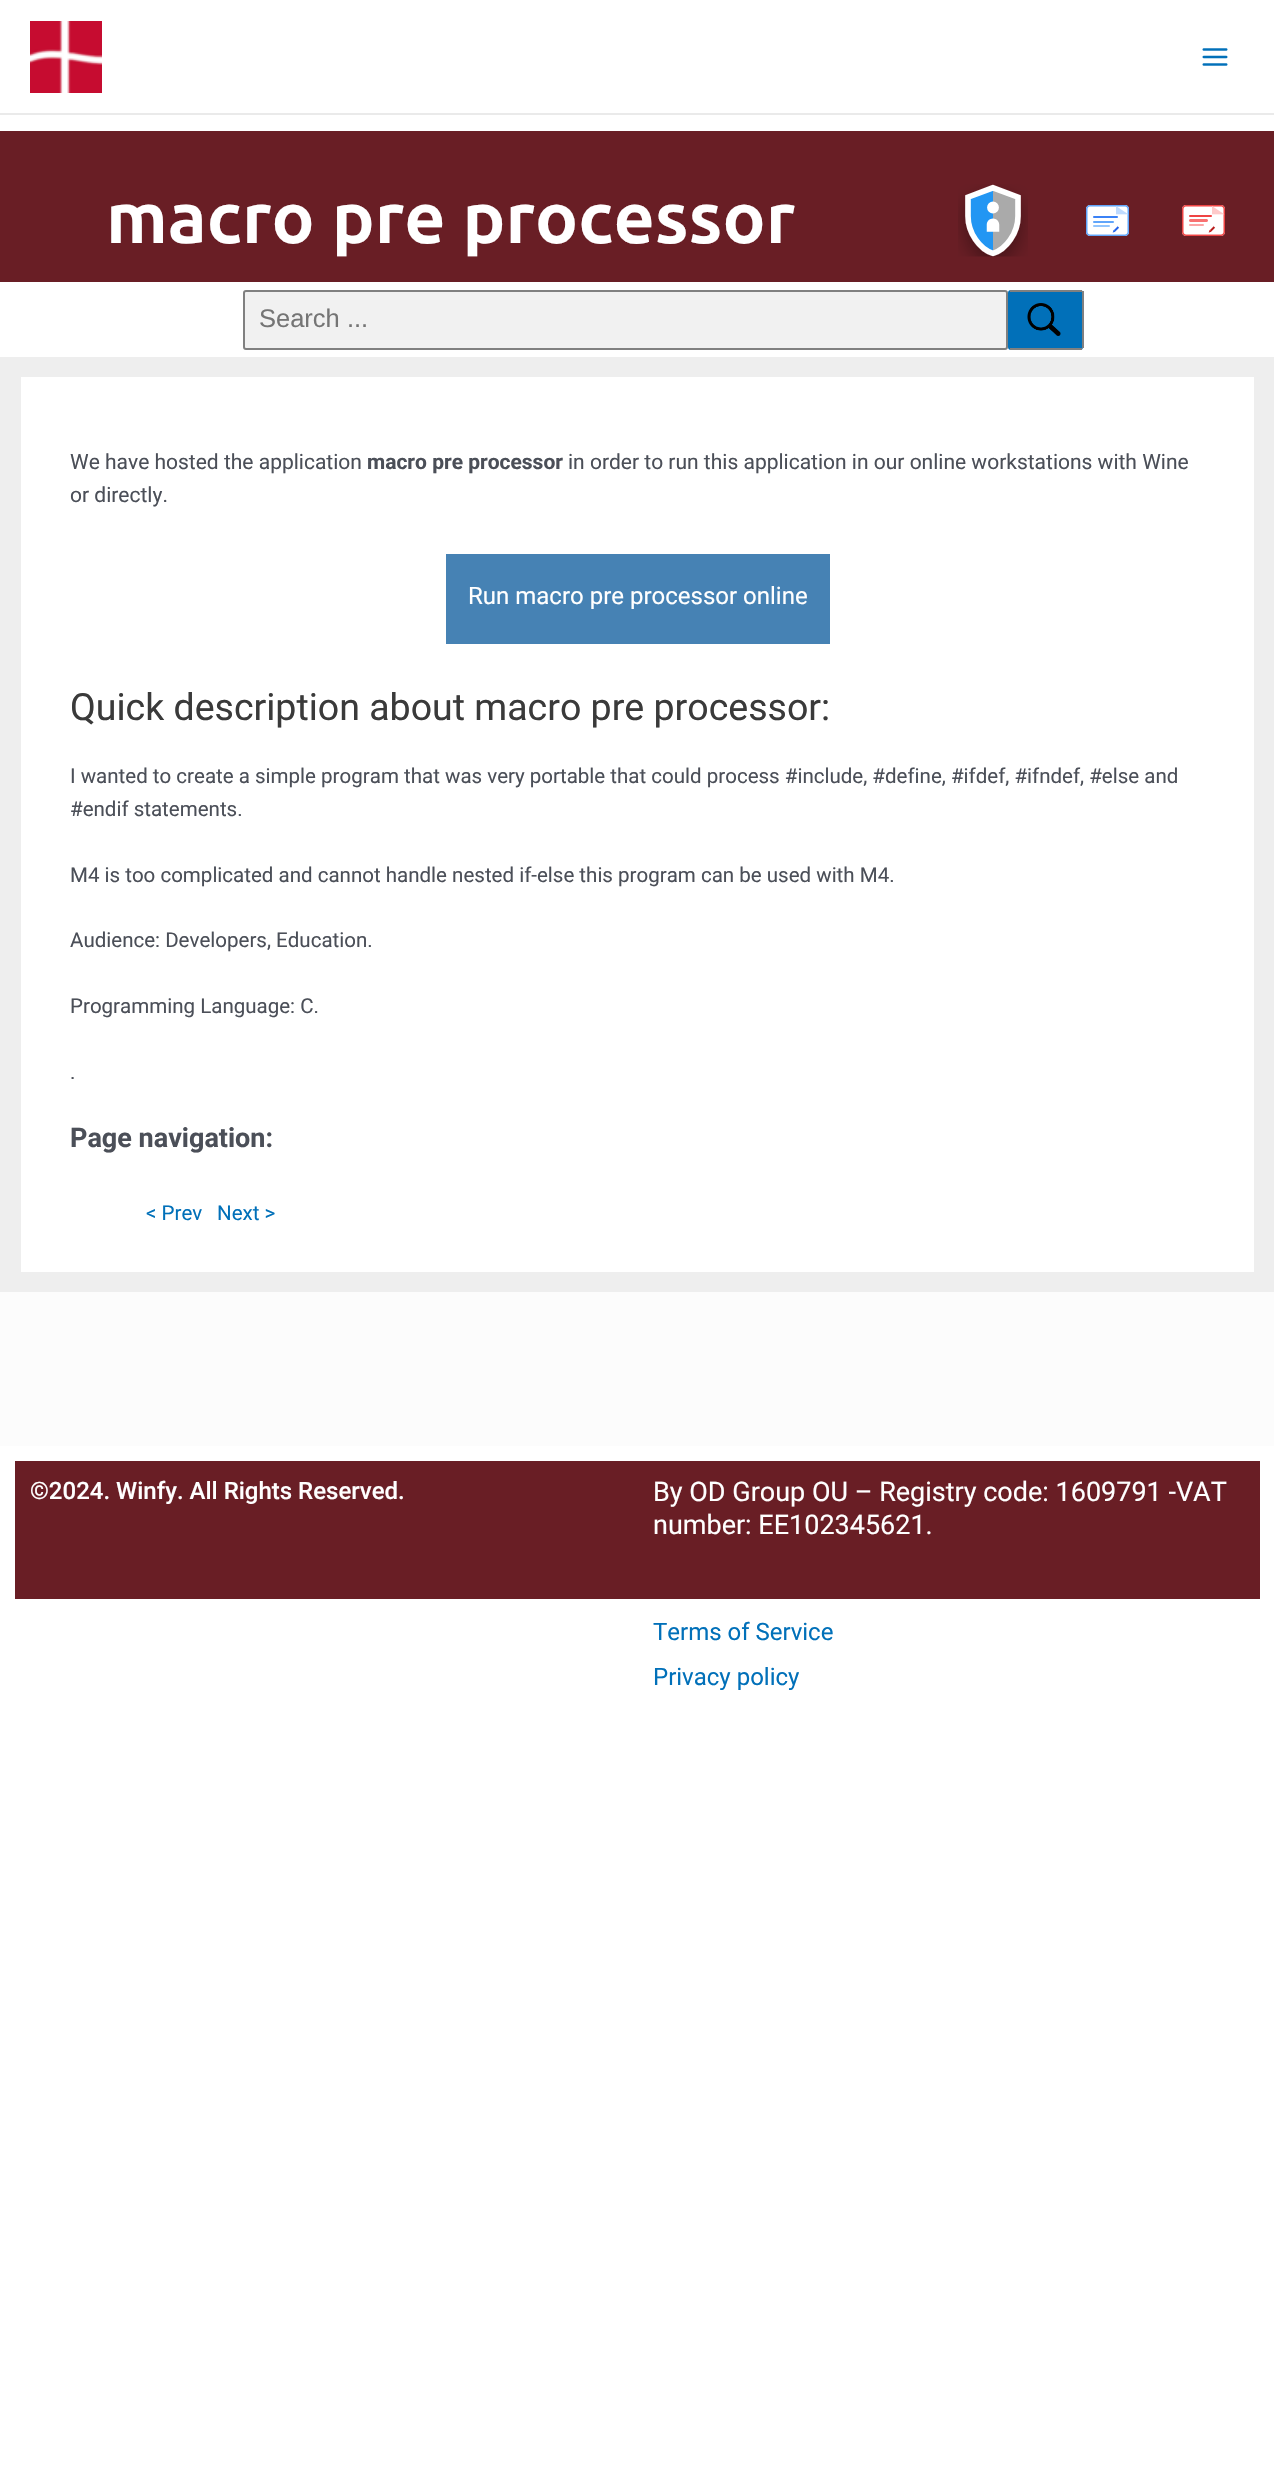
void draw(SkCanvas* canvas) {
	SkPaint fill;
	fill.setAntiAlias(true);
	auto makeFont = [&](const char* family, int weight, float size, bool italic = false) {
		SkFontStyle style(weight, SkFontStyle::kNormal_Width,
			italic ? SkFontStyle::kItalic_Slant : SkFontStyle::kUpright_Slant);
		SkFont result(fontMgr->matchFamilyStyle(family, style), size);
		result.setSubpixel(true);
		return result;
	};
	auto text = [&](const char* s, float x, float y, const SkFont& font) {
		canvas->drawString(s, x, y, font, fill);
	};
	auto box = [&](float l, float t, float r, float b) {
		canvas->drawRect(SkRect::MakeLTRB(l, t, r, b), fill);
	};
	auto roundBox = [&](float l, float t, float r, float b, float radius) {
		canvas->drawRoundRect(SkRect::MakeLTRB(l, t, r, b), radius, radius, fill);
	};
	auto picture = [&](const char* path, float l, float t, float r, float b) {
		auto image = SkImages::DeferredFromEncodedData(SkData::MakeFromFileName(path));
		canvas->drawImageRect(image, SkRect::MakeLTRB(l, t, r, b), SkSamplingOptions());
	};
	canvas->clear(0xFFFFFFFF);
	fill.setColor(0xFFEAEAEA);
	box(0, 113, 1274, 115);
	picture("image0.png", 30, 21, 102, 93);
	picture("image1.png", 1202, 48, 1228, 66);
	fill.setColor(0xFF691E25);
	box(0, 131, 1274, 282);
	picture("image2.png", 958, 184, 1028, 257);
	picture("image3.png", 1086, 205, 1129, 236);
	picture("image4.png", 1182, 205, 1225, 236);
	fill.setColor(0xFFF1F1F1);
	canvas->drawRoundRect(SkRect::MakeLTRB(244, 291, 1007, 349), 2, 2, fill);
	fill.setStyle(SkPaint::kStroke_Style);
	fill.setStrokeWidth(2);
	fill.setColor(0xFF808080);
	canvas->drawRoundRect(SkRect::MakeLTRB(244, 291, 1007, 349), 2, 2, fill);
	fill.setStyle(SkPaint::kFill_Style);
	fill.setColor(0xFF0170B9);
	roundBox(1008, 290, 1083, 350, 3);
	fill.setColor(0xFF808080);
	box(1010, 290, 1082, 292);
	box(1082, 291, 1084, 348);
	box(1010, 348, 1082, 350);
	picture("image5.png", 1027, 303, 1061, 336);
	fill.setColor(0xFFEEEEEE);
	box(0, 357, 1274, 1292);
	fill.setColor(0xFFFFFFFF);
	box(21, 377, 1254, 1272);
	fill.setColor(0xFF4682B4);
	box(446, 554, 830, 644);
	fill.setColor(0xFFFCFCFC);
	box(0, 1292, 1274, 1446);
	fill.setColor(0xFF691E25);
	box(15, 1461, 1260, 1599);
	auto font1 = makeFont("Ubuntu", 700, 71.75f);
	fill.setColor(0xFFFFFFFF);
	text("macro pre processor", 106, 243, font1);
	auto font2 = makeFont("Liberation Sans", 400, 25.5f);
	fill.setColor(0xFF757575);
	text("Search ...", 259, 327, font2);
	auto font3 = makeFont("Roboto", 400, 21);
	fill.setColor(0xFF4B4F58);
	text("We have hosted the application", 70, 469, font3);
	auto font4 = makeFont("Roboto", 700, 21);
	text("macro pre processor", 367, 469, font4);
	text("in order to run this application in our online workstations with Wine", 568, 469, font3);
	text("or directly.", 70, 502, font3);
	auto font5 = makeFont("Roboto", 400, 24);
	fill.setColor(0xFFFFFFFF);
	text("Run macro pre processor online", 468, 604, font5);
	auto font6 = makeFont("Roboto", 400, 37.5f);
	fill.setColor(0xFF3A3A3A);
	text("Quick description about macro pre processor:", 70, 720, font6);
	auto font7 = makeFont("Roboto", 400, 20.52f);
	fill.setColor(0xFF4B4F58);
	text("I wanted to create a simple program that was very portable that could process #include, #define, #ifdef, #ifndef, #else and", 70, 783, font7);
	text("#endif statements.", 70, 816, font7);
	text("M4 is too complicated and cannot handle nested if-else this program can be used with M4.", 70, 882, font7);
	text("Audience: Developers, Education.", 70, 947, font7);
	text("Programming Language: C.", 70, 1013, font7);
	text(".", 70, 1079, font7);
	auto font8 = makeFont("Roboto", 700, 27);
	text("Page navigation:", 70, 1147, font8);
	fill.setColor(0xFF0170B9);
	text("< Prev", 146, 1220, font7);
	text("Next >", 217, 1220, font7);
	auto font9 = makeFont("Roboto", 500, 24);
	fill.setColor(0xFFFFFFFF);
	text("©2024. Winfy. All Rights Reserved.", 30, 1499, font9);
	auto font10 = makeFont("Roboto", 400, 27);
	text("By OD Group OU – Registry code: 1609791 -VAT", 653, 1501, font10);
	text("number: EE102345621.", 653, 1534, font10);
	fill.setColor(0xFF0170B9);
	text("Terms of Service", 653, 1640, font5);
	text("Privacy policy", 653, 1685, font5);
}
